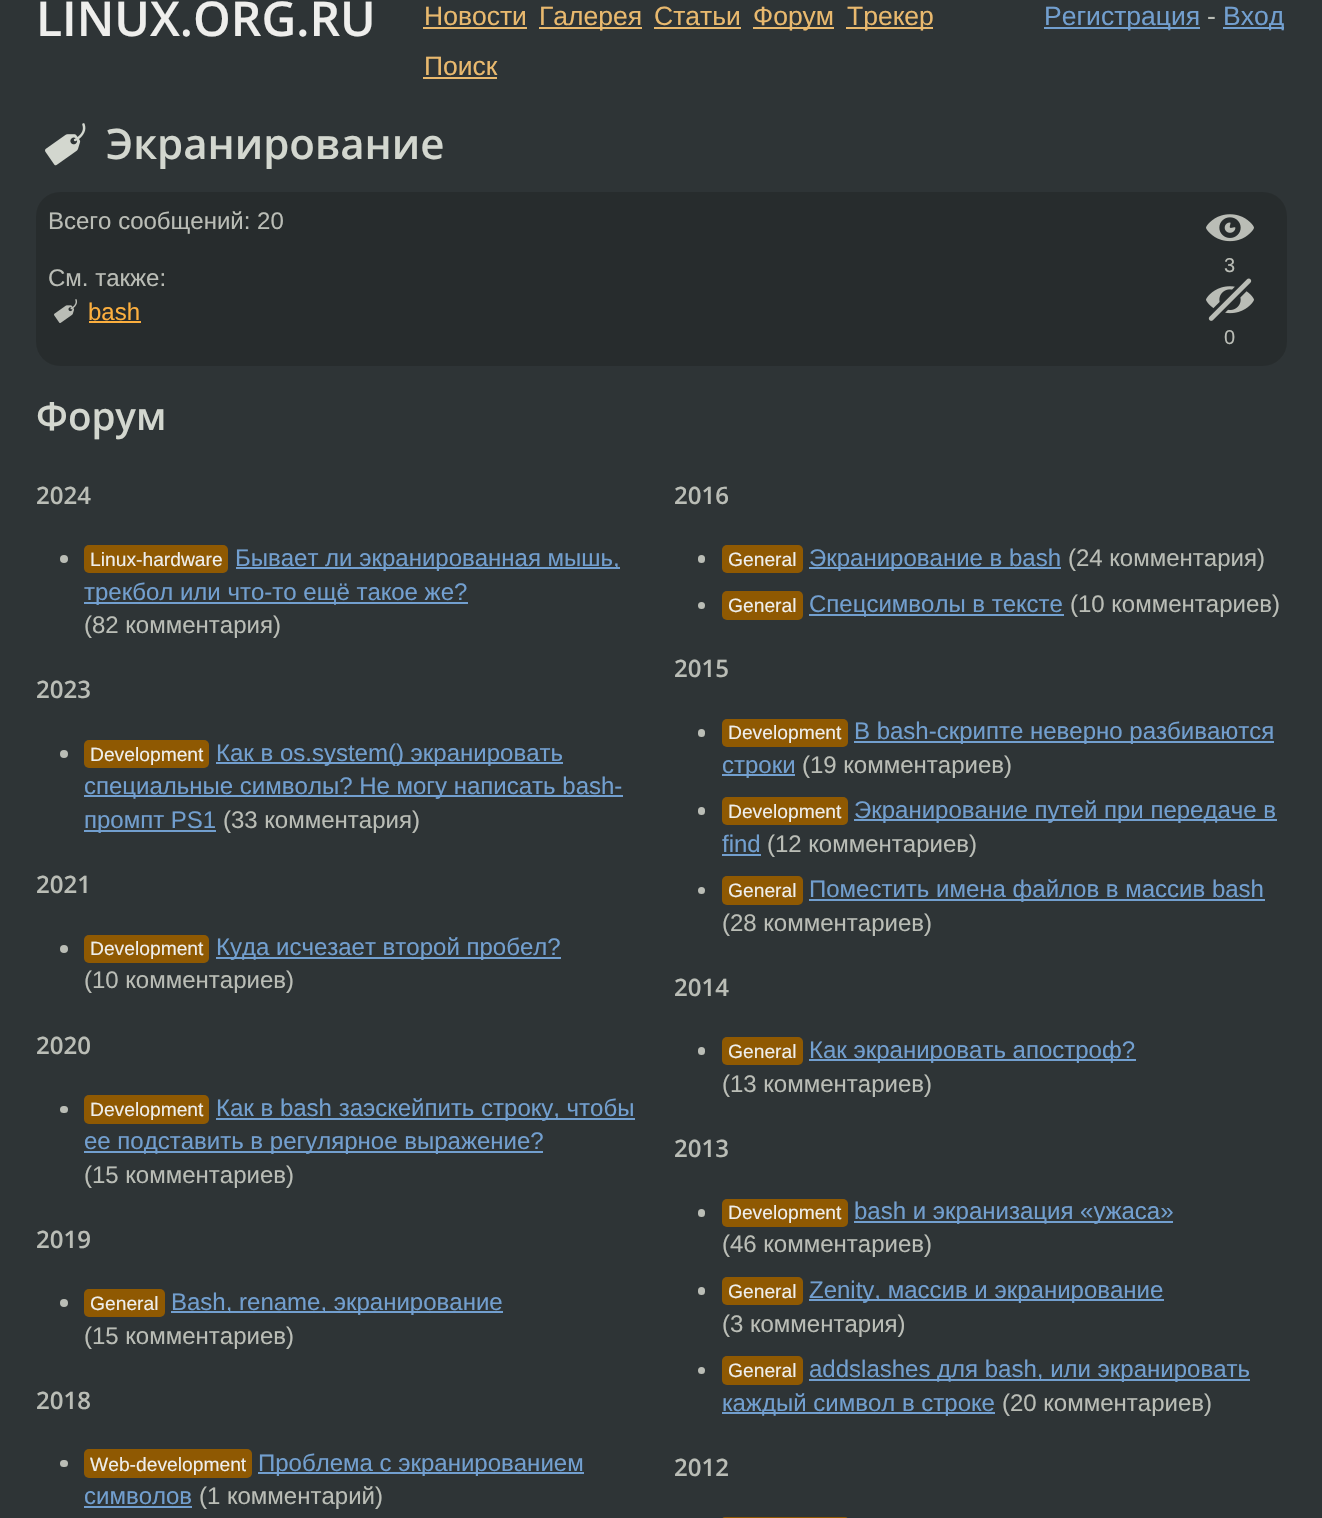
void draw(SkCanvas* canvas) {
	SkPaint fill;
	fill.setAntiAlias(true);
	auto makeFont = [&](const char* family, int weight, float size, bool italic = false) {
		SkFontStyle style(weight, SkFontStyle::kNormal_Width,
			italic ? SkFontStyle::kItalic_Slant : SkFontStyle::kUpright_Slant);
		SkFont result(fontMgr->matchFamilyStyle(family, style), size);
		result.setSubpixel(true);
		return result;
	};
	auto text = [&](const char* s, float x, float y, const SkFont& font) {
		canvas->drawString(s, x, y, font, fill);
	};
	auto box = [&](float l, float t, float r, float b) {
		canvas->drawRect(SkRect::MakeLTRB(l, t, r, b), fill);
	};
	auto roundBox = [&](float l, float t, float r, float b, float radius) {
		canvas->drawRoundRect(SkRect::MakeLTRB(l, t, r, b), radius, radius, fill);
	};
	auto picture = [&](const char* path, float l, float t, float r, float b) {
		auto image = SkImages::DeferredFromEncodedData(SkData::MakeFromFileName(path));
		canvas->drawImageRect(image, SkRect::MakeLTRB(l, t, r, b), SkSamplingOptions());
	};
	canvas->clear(0xFF2E3436);
	fill.setColor(0xFFE9B96E);
	box(423, 27, 527, 29);
	box(539, 27, 642, 29);
	box(654, 27, 741, 29);
	box(753, 27, 834, 29);
	box(846, 27, 933, 29);
	box(423, 77, 497, 79);
	fill.setColor(0xFF729FCF);
	box(1044, 27, 1200, 29);
	box(1223, 27, 1284, 29);
	picture("image0.png", 45, 123, 86, 166);
	fill.setColor(0xFF272C2D);
	roundBox(36, 192, 1287, 366, 24);
	picture("image1.png", 1206, 214, 1254, 242);
	picture("image2.png", 1206, 278, 1254, 321);
	picture("image3.png", 54, 299, 77, 323);
	fill.setColor(0xFFFCAF3E);
	box(89, 321, 141, 323);
	fill.setColor(0xFFBABDB6);
	canvas->drawCircle(64, 559, 4, fill);
	fill.setColor(0xFF8F5902);
	roundBox(84, 545, 228, 573, 5);
	fill.setColor(0xFF729FCF);
	box(236, 567, 620, 569);
	box(84, 602, 468, 604);
	fill.setColor(0xFFBABDB6);
	canvas->drawCircle(64, 754, 4, fill);
	fill.setColor(0xFF8F5902);
	roundBox(84, 740, 209, 768, 5);
	fill.setColor(0xFF729FCF);
	box(216, 762, 563, 764);
	box(84, 795, 623, 797);
	box(84, 830, 216, 832);
	fill.setColor(0xFFBABDB6);
	canvas->drawCircle(64, 949, 4, fill);
	fill.setColor(0xFF8F5902);
	roundBox(84, 935, 209, 963, 5);
	fill.setColor(0xFF729FCF);
	box(216, 957, 561, 959);
	fill.setColor(0xFFBABDB6);
	roundBox(60, 1106, 68, 1113, 3.5f);
	fill.setColor(0xFF8F5902);
	roundBox(84, 1095, 209, 1124, 5);
	fill.setColor(0xFF729FCF);
	box(216, 1118, 635, 1120);
	box(84, 1151, 543, 1153);
	fill.setColor(0xFFBABDB6);
	canvas->drawCircle(64, 1303, 4, fill);
	fill.setColor(0xFF8F5902);
	roundBox(84, 1289, 165, 1317, 5);
	fill.setColor(0xFF729FCF);
	box(171, 1311, 503, 1313);
	fill.setColor(0xFFBABDB6);
	roundBox(60, 1460, 68, 1467, 3.5f);
	fill.setColor(0xFF8F5902);
	roundBox(84, 1449, 252, 1478, 5);
	fill.setColor(0xFF729FCF);
	box(258, 1472, 584, 1474);
	box(84, 1506, 192, 1508);
	fill.setColor(0xFFBABDB6);
	roundBox(698, 555, 705, 563, 3.5f);
	fill.setColor(0xFF8F5902);
	roundBox(722, 545, 803, 573, 5);
	fill.setColor(0xFF729FCF);
	box(809, 567, 1061, 569);
	fill.setColor(0xFFBABDB6);
	canvas->drawCircle(701.5f, 605.5f, 3.5f, fill);
	fill.setColor(0xFF8F5902);
	roundBox(722, 591, 803, 620, 5);
	fill.setColor(0xFF729FCF);
	box(809, 614, 1064, 616);
	fill.setColor(0xFFBABDB6);
	roundBox(698, 729, 705, 737, 3.5f);
	fill.setColor(0xFF8F5902);
	roundBox(722, 719, 848, 747, 5);
	fill.setColor(0xFF729FCF);
	box(854, 741, 1274, 743);
	box(722, 774, 795, 776);
	fill.setColor(0xFFBABDB6);
	roundBox(698, 807, 705, 815, 3.5f);
	fill.setColor(0xFF8F5902);
	roundBox(722, 797, 848, 825, 5);
	fill.setColor(0xFF729FCF);
	box(854, 819, 1277, 821);
	box(722, 854, 761, 856);
	fill.setColor(0xFFBABDB6);
	canvas->drawCircle(701.5f, 890.5f, 3.5f, fill);
	fill.setColor(0xFF8F5902);
	roundBox(722, 876, 803, 905, 5);
	fill.setColor(0xFF729FCF);
	box(809, 899, 1265, 901);
	fill.setColor(0xFFBABDB6);
	roundBox(698, 1047, 705, 1055, 3.5f);
	fill.setColor(0xFF8F5902);
	roundBox(722, 1037, 803, 1065, 5);
	fill.setColor(0xFF729FCF);
	box(809, 1059, 1136, 1061);
	fill.setColor(0xFFBABDB6);
	roundBox(698, 1209, 705, 1217, 3.5f);
	fill.setColor(0xFF8F5902);
	roundBox(722, 1199, 848, 1227, 5);
	fill.setColor(0xFF729FCF);
	box(854, 1221, 1173, 1223);
	fill.setColor(0xFFBABDB6);
	roundBox(698, 1287, 705, 1295, 3.5f);
	fill.setColor(0xFF8F5902);
	roundBox(722, 1277, 803, 1305, 5);
	fill.setColor(0xFF729FCF);
	box(809, 1299, 1164, 1301);
	fill.setColor(0xFFBABDB6);
	canvas->drawCircle(701.5f, 1370.5f, 3.5f, fill);
	fill.setColor(0xFF8F5902);
	roundBox(722, 1356, 803, 1385, 5);
	fill.setColor(0xFF729FCF);
	box(809, 1379, 1250, 1381);
	box(722, 1412, 995, 1414);
	fill.setColor(0xFF8F5902);
	roundBox(722, 1517, 848, 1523, 5);
	auto font1 = makeFont("Open Sans", 600, 48);
	fill.setColor(0xFFEEEEEC);
	text("LINUX.ORG.RU", 36, 36, font1);
	auto font2 = makeFont("Liberation Sans", 400, 26.5f);
	fill.setColor(0xFFE9B96E);
	text("Новости", 424, 25, font2);
	text("Галерея", 539, 25, font2);
	text("Статьи", 654, 25, font2);
	text("Форум", 753, 25, font2);
	text("Трекер", 847, 25, font2);
	text("Поиск", 424, 75, font2);
	fill.setColor(0xFF729FCF);
	text("Регистрация", 1044, 25, font2);
	fill.setColor(0xFFBABDB6);
	text("-", 1207, 25, font2);
	fill.setColor(0xFF729FCF);
	text("Вход", 1223, 25, font2);
	auto font3 = makeFont("Open Sans", 600, 42);
	fill.setColor(0xFFD3D7CF);
	text("Экранирование", 106, 159, font3);
	auto font4 = makeFont("Liberation Sans", 400, 24);
	fill.setColor(0xFFBABDB6);
	text("Всего сообщений: 20", 48, 229, font4);
	text("См. также:", 48, 286, font4);
	auto font5 = makeFont("Liberation Sans", 400, 20);
	text("3", 1224, 272, font5);
	text("0", 1224, 344, font5);
	fill.setColor(0xFFFCAF3E);
	text("bash", 88, 320, font4);
	auto font6 = makeFont("Open Sans", 600, 38.5f);
	fill.setColor(0xFFD3D7CF);
	text("Форум", 36, 430, font6);
	auto font7 = makeFont("Open Sans", 600, 24);
	fill.setColor(0xFFBABDB6);
	text("2024", 36, 504, font7);
	auto font8 = makeFont("Liberation Sans", 400, 19.25f);
	fill.setColor(0xFFEEEEEC);
	text("Linux-hardware", 90, 566, font8);
	fill.setColor(0xFF729FCF);
	text("Бывает ли экранированная мышь,", 235, 566, font4);
	text("трекбол или что-то ещё такое же?", 84, 600, font4);
	fill.setColor(0xFFBABDB6);
	text("(82 комментария)", 84, 633, font4);
	text("2023", 36, 698, font7);
	fill.setColor(0xFFEEEEEC);
	text("Development", 90, 761, font8);
	fill.setColor(0xFF729FCF);
	text("Как в os.system() экранировать", 216, 761, font4);
	text("специальные символы? Не могу написать bash-", 84, 794, font4);
	text("промпт PS1", 84, 828, font4);
	fill.setColor(0xFFBABDB6);
	text("(33 комментария)", 223, 828, font4);
	text("2021", 36, 893, font7);
	fill.setColor(0xFFEEEEEC);
	text("Development", 90, 955, font8);
	fill.setColor(0xFF729FCF);
	text("Куда исчезает второй пробел?", 216, 955, font4);
	fill.setColor(0xFFBABDB6);
	text("(10 комментариев)", 84, 988, font4);
	text("2020", 36, 1054, font7);
	fill.setColor(0xFFEEEEEC);
	text("Development", 90, 1116, font8);
	fill.setColor(0xFF729FCF);
	text("Как в bash заэскейпить строку, чтобы", 216, 1116, font4);
	text("ее подставить в регулярное выражение?", 84, 1149, font4);
	fill.setColor(0xFFBABDB6);
	text("(15 комментариев)", 84, 1183, font4);
	text("2019", 36, 1248, font7);
	fill.setColor(0xFFEEEEEC);
	text("General", 90, 1310, font8);
	fill.setColor(0xFF729FCF);
	text("Bash, rename, экранирование", 171, 1310, font4);
	fill.setColor(0xFFBABDB6);
	text("(15 комментариев)", 84, 1344, font4);
	text("2018", 36, 1409, font7);
	fill.setColor(0xFFEEEEEC);
	text("Web-development", 90, 1471, font8);
	fill.setColor(0xFF729FCF);
	text("Проблема с экранированием", 258, 1471, font4);
	text("символов", 84, 1504, font4);
	fill.setColor(0xFFBABDB6);
	text("(1 комментарий)", 199, 1504, font4);
	text("2016", 674, 504, font7);
	fill.setColor(0xFFEEEEEC);
	text("General", 728, 566, font8);
	fill.setColor(0xFF729FCF);
	text("Экранирование в bash", 809, 566, font4);
	fill.setColor(0xFFBABDB6);
	text("(24 комментария)", 1068, 566, font4);
	fill.setColor(0xFFEEEEEC);
	text("General", 728, 612, font8);
	fill.setColor(0xFF729FCF);
	text("Спецсимволы в тексте", 809, 612, font4);
	fill.setColor(0xFFBABDB6);
	text("(10 комментариев)", 1070, 612, font4);
	text("2015", 674, 677, font7);
	fill.setColor(0xFFEEEEEC);
	text("Development", 728, 739, font8);
	fill.setColor(0xFF729FCF);
	text("В bash-скрипте неверно разбиваются", 854, 739, font4);
	text("строки", 722, 773, font4);
	fill.setColor(0xFFBABDB6);
	text("(19 комментариев)", 802, 773, font4);
	fill.setColor(0xFFEEEEEC);
	text("Development", 728, 818, font8);
	fill.setColor(0xFF729FCF);
	text("Экранирование путей при передаче в", 854, 818, font4);
	text("find", 722, 852, font4);
	fill.setColor(0xFFBABDB6);
	text("(12 комментариев)", 767, 852, font4);
	fill.setColor(0xFFEEEEEC);
	text("General", 728, 897, font8);
	fill.setColor(0xFF729FCF);
	text("Поместить имена файлов в массив bash", 809, 897, font4);
	fill.setColor(0xFFBABDB6);
	text("(28 комментариев)", 722, 931, font4);
	text("2014", 674, 996, font7);
	fill.setColor(0xFFEEEEEC);
	text("General", 728, 1058, font8);
	fill.setColor(0xFF729FCF);
	text("Как экранировать апостроф?", 809, 1058, font4);
	fill.setColor(0xFFBABDB6);
	text("(13 комментариев)", 722, 1092, font4);
	text("2013", 674, 1157, font7);
	fill.setColor(0xFFEEEEEC);
	text("Development", 728, 1219, font8);
	fill.setColor(0xFF729FCF);
	text("bash и экранизация «ужаса»", 854, 1219, font4);
	fill.setColor(0xFFBABDB6);
	text("(46 комментариев)", 722, 1252, font4);
	fill.setColor(0xFFEEEEEC);
	text("General", 728, 1298, font8);
	fill.setColor(0xFF729FCF);
	text("Zenity, массив и экранирование", 809, 1298, font4);
	fill.setColor(0xFFBABDB6);
	text("(3 комментария)", 722, 1332, font4);
	fill.setColor(0xFFEEEEEC);
	text("General", 728, 1377, font8);
	fill.setColor(0xFF729FCF);
	text("addslashes для bash, или экранировать", 809, 1377, font4);
	text("каждый символ в строке", 722, 1411, font4);
	fill.setColor(0xFFBABDB6);
	text("(20 комментариев)", 1002, 1411, font4);
	text("2012", 674, 1476, font7);
}
